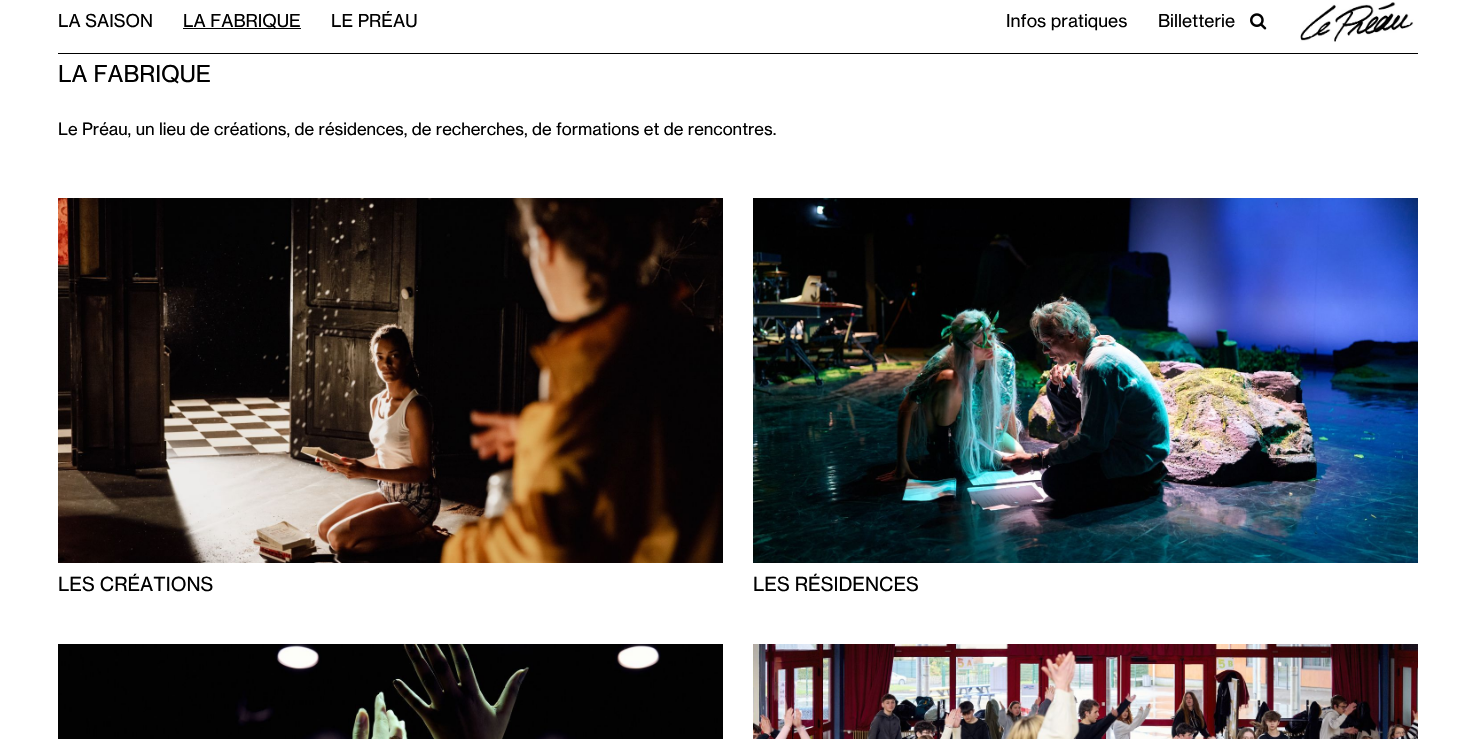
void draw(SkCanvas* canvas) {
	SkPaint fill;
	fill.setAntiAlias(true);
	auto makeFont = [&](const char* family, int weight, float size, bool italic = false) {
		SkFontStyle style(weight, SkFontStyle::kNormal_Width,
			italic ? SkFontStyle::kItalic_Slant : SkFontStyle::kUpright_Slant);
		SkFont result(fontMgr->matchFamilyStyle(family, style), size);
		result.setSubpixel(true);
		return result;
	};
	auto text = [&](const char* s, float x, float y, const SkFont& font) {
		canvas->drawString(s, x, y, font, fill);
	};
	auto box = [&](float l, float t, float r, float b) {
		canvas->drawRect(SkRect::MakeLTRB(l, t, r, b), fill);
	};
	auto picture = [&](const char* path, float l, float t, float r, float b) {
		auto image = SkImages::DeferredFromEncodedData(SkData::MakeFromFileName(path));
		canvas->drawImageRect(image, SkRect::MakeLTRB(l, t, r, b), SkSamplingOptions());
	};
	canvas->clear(0xFFFFFFFF);
	fill.setColor(0xFF000000);
	box(183, 28, 301, 29);
	picture("image0.png", 1250, 13, 1267, 30);
	picture("image1.png", 1300, 2, 1414, 42);
	box(58, 53, 1418, 54);
	picture("image2.png", 58, 198, 723, 563);
	picture("image3.png", 753, 198, 1418, 563);
	picture("image4.png", 58, 644, 723, 739);
	picture("image5.png", 753, 644, 1418, 739);
	auto font1 = makeFont("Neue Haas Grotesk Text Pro", 400, 17.5f);
	text("LA SAISON", 58, 27, font1);
	text("LA FABRIQUE", 183, 27, font1);
	text("LE PRÉAU", 331, 27, font1);
	text("Infos pratiques", 1006, 27, font1);
	text("Billetterie", 1158, 27, font1);
	auto font2 = makeFont("Neue Haas Grotesk Text Pro", 400, 22.75f);
	text("LA FABRIQUE", 58, 82, font2);
	auto font3 = makeFont("Neue Haas Grotesk Text Pro", 400, 16.7f);
	text("Le Préau, un lieu de créations, de résidences, de recherches, de formations et de rencontres.", 58, 135, font3);
	auto font4 = makeFont("Neue Haas Grotesk Text Pro", 400, 19);
	text("LES CRÉATIONS", 58, 591, font4);
	text("LES RÉSIDENCES", 753, 591, font4);
}
